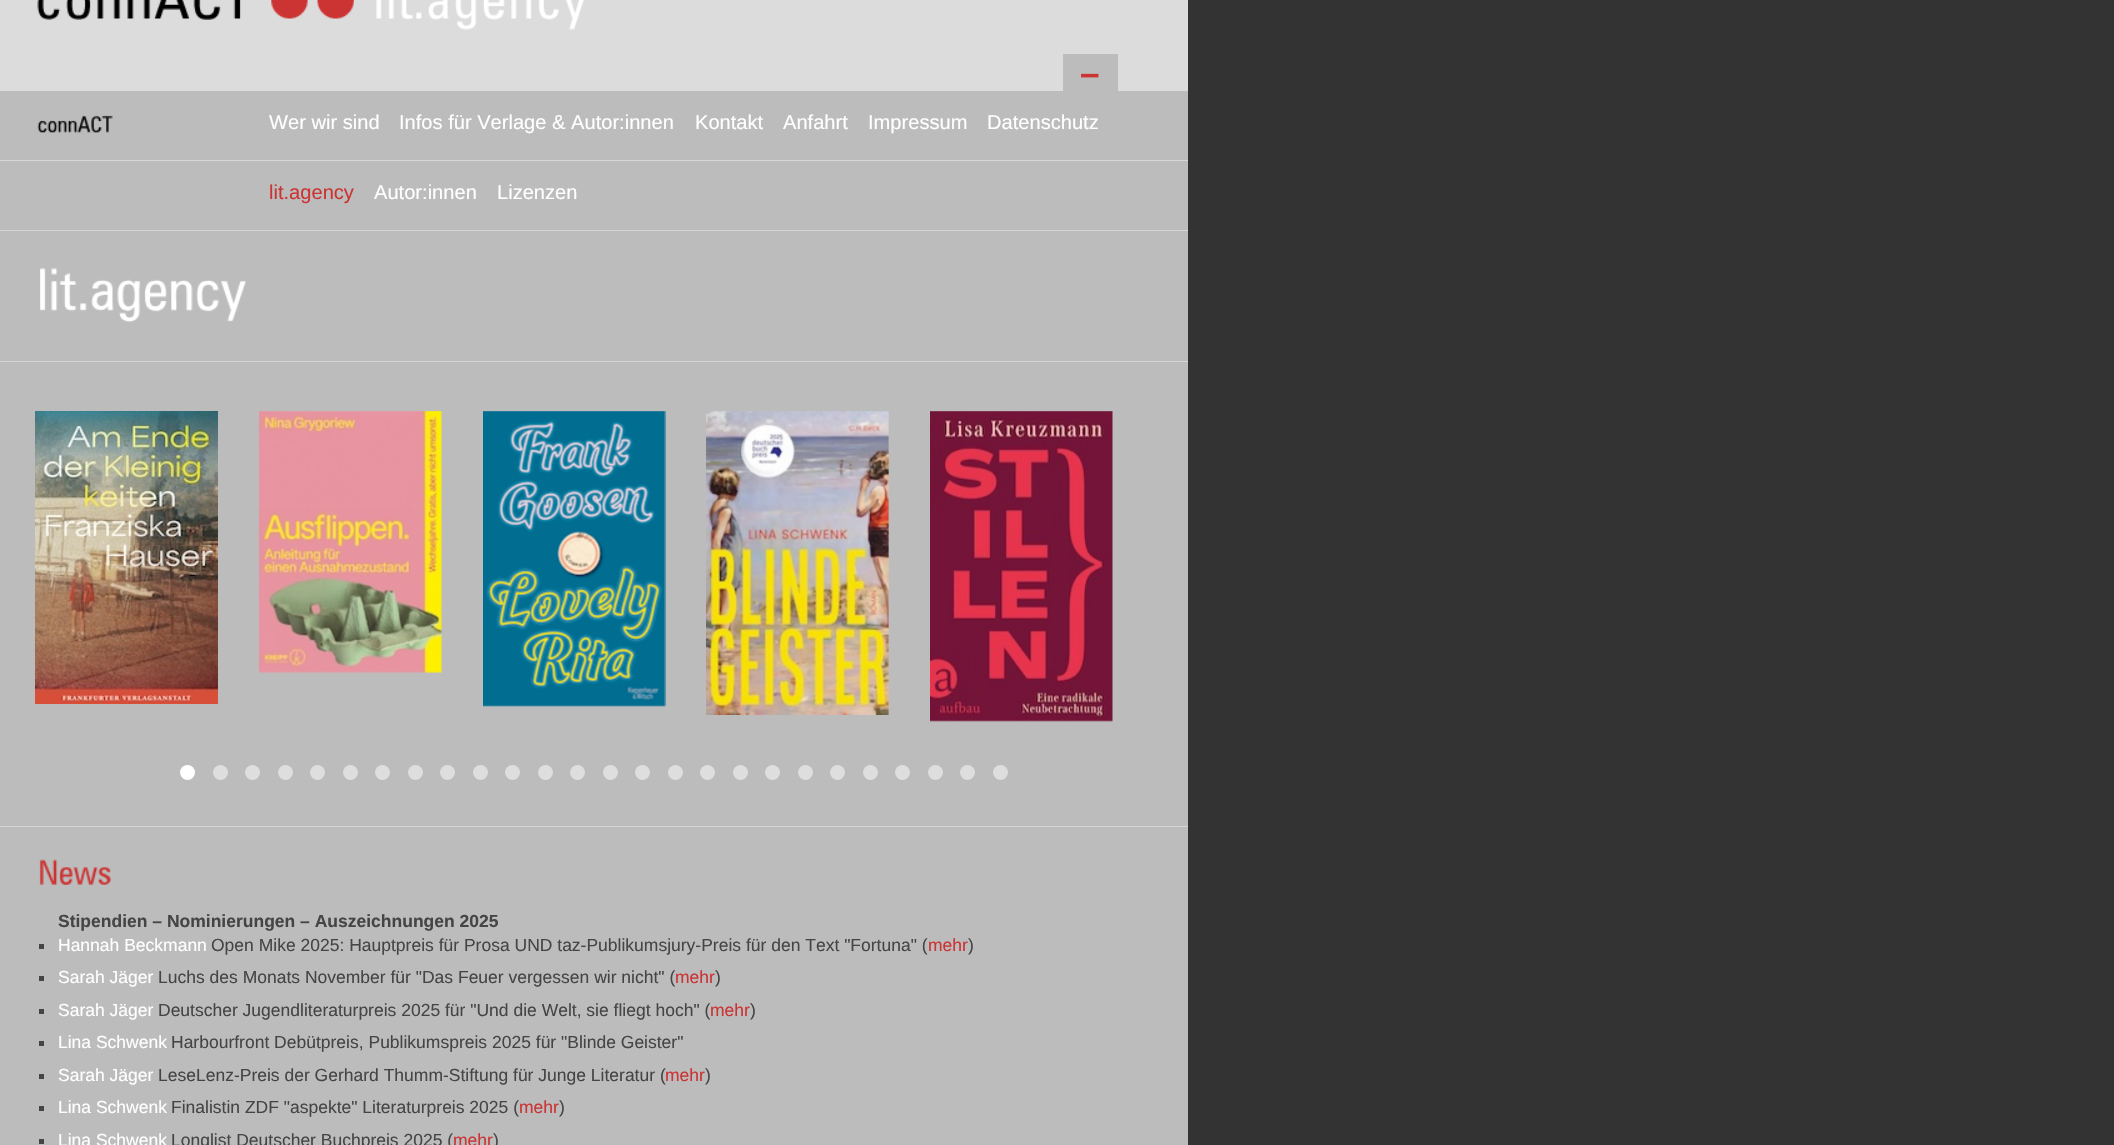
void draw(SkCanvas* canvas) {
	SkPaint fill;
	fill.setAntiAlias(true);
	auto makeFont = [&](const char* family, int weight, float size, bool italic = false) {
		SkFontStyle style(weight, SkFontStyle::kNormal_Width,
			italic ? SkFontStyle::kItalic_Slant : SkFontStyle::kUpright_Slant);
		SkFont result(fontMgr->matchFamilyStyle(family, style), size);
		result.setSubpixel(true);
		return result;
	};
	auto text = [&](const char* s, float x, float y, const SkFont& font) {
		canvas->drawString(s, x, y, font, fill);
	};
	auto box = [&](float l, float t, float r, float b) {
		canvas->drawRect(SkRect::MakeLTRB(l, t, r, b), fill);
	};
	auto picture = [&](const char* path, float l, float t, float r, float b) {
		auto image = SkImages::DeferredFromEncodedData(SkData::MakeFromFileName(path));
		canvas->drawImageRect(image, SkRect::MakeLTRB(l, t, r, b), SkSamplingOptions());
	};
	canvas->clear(0xFF333333);
	fill.setColor(0xFFBCBCBC);
	box(0, 91, 1188, 1145);
	fill.setColor(0xFFDCDCDC);
	box(0, 0, 1188, 91);
	picture("image0.png", 37, 0, 584, 30);
	fill.setColor(0xFFBCBCBC);
	box(1063, 54, 1118, 91);
	fill.setColor(0xFFD7D7D7);
	box(0, 160, 1188, 161);
	picture("image1.png", 37, 115, 113, 133);
	box(0, 230, 1188, 231);
	box(0, 361, 1188, 362);
	picture("image2.png", 40, 268, 247, 323);
	box(0, 826, 1188, 827);
	picture("image3.png", 35, 411, 218, 704);
	picture("image4.png", 259, 411, 442, 673);
	picture("image5.png", 483, 411, 666, 707);
	picture("image6.png", 706, 411, 889, 715);
	picture("image7.png", 930, 411, 1113, 722);
	fill.setColor(0xFFFFFFFF);
	canvas->drawCircle(187.5f, 772.5f, 7.5f, fill);
	fill.setColor(0xFFDEDEDE);
	canvas->drawCircle(220.5f, 772.5f, 7.5f, fill);
	canvas->drawCircle(252.5f, 772.5f, 7.5f, fill);
	canvas->drawCircle(285.5f, 772.5f, 7.5f, fill);
	canvas->drawCircle(317.5f, 772.5f, 7.5f, fill);
	canvas->drawCircle(350.5f, 772.5f, 7.5f, fill);
	canvas->drawCircle(382.5f, 772.5f, 7.5f, fill);
	canvas->drawCircle(415.5f, 772.5f, 7.5f, fill);
	canvas->drawCircle(447.5f, 772.5f, 7.5f, fill);
	canvas->drawCircle(480.5f, 772.5f, 7.5f, fill);
	canvas->drawCircle(512.5f, 772.5f, 7.5f, fill);
	canvas->drawCircle(545.5f, 772.5f, 7.5f, fill);
	canvas->drawCircle(577.5f, 772.5f, 7.5f, fill);
	canvas->drawCircle(610.5f, 772.5f, 7.5f, fill);
	canvas->drawCircle(642.5f, 772.5f, 7.5f, fill);
	canvas->drawCircle(675.5f, 772.5f, 7.5f, fill);
	canvas->drawCircle(707.5f, 772.5f, 7.5f, fill);
	canvas->drawCircle(740.5f, 772.5f, 7.5f, fill);
	canvas->drawCircle(772.5f, 772.5f, 7.5f, fill);
	canvas->drawCircle(805.5f, 772.5f, 7.5f, fill);
	canvas->drawCircle(837.5f, 772.5f, 7.5f, fill);
	canvas->drawCircle(870.5f, 772.5f, 7.5f, fill);
	canvas->drawCircle(902.5f, 772.5f, 7.5f, fill);
	canvas->drawCircle(935.5f, 772.5f, 7.5f, fill);
	canvas->drawCircle(967.5f, 772.5f, 7.5f, fill);
	canvas->drawCircle(1000.5f, 772.5f, 7.5f, fill);
	picture("image8.png", 39, 859, 112, 885);
	fill.setColor(0xFF454545);
	box(39, 944, 44, 949);
	box(39, 976, 44, 981);
	box(39, 1009, 44, 1014);
	box(39, 1041, 44, 1046);
	box(39, 1074, 44, 1079);
	box(39, 1106, 44, 1111);
	box(39, 1139, 44, 1144);
	auto font1 = makeFont("Liberation Sans", 700, 35);
	fill.setColor(0xFFCC3333);
	text("–", 1080, 85, font1);
	auto font2 = makeFont("Liberation Sans", 400, 20.1f);
	fill.setColor(0xFFFFFFFF);
	text("Wer wir sind", 269, 129, font2);
	text("Infos für Verlage & Autor:innen", 399, 129, font2);
	text("Kontakt", 695, 129, font2);
	text("Anfahrt", 783, 129, font2);
	text("Impressum", 868, 129, font2);
	text("Datenschutz", 987, 129, font2);
	fill.setColor(0xFFCC3333);
	text("lit.agency", 269, 199, font2);
	fill.setColor(0xFFFFFFFF);
	text("Autor:innen", 374, 199, font2);
	text("Lizenzen", 497, 199, font2);
	auto font3 = makeFont("Liberation Sans", 700, 17.5f);
	fill.setColor(0xFF454545);
	text("Stipendien – Nominierungen – Auszeichnungen 2025", 58, 927, font3);
	auto font4 = makeFont("Liberation Sans", 400, 17.5f);
	fill.setColor(0xFFFFFFFF);
	text("Hannah Beckmann", 58, 951, font4);
	fill.setColor(0xFF454545);
	text("Open Mike 2025: Hauptpreis für Prosa UND taz-Publikumsjury-Preis für den Text \"Fortuna\" (", 211, 951, font4);
	fill.setColor(0xFFCC3333);
	text("mehr", 928, 951, font4);
	fill.setColor(0xFF454545);
	text(")", 968, 951, font4);
	fill.setColor(0xFFFFFFFF);
	text("Sarah Jäger", 58, 983, font4);
	fill.setColor(0xFF454545);
	text("Luchs des Monats November für \"Das Feuer vergessen wir nicht\" (", 158, 983, font4);
	fill.setColor(0xFFCC3333);
	text("mehr", 675, 983, font4);
	fill.setColor(0xFF454545);
	text(")", 715, 983, font4);
	fill.setColor(0xFFFFFFFF);
	text("Sarah Jäger", 58, 1016, font4);
	fill.setColor(0xFF454545);
	text("Deutscher Jugendliteraturpreis 2025 für \"Und die Welt, sie fliegt hoch\" (", 158, 1016, font4);
	fill.setColor(0xFFCC3333);
	text("mehr", 710, 1016, font4);
	fill.setColor(0xFF454545);
	text(")", 750, 1016, font4);
	fill.setColor(0xFFFFFFFF);
	text("Lina Schwenk", 58, 1048, font4);
	fill.setColor(0xFF454545);
	text("Harbourfront Debütpreis, Publikumspreis 2025 für \"Blinde Geister\"", 171, 1048, font4);
	fill.setColor(0xFFFFFFFF);
	text("Sarah Jäger", 58, 1081, font4);
	fill.setColor(0xFF454545);
	text("LeseLenz-Preis der Gerhard Thumm-Stiftung für Junge Literatur (", 158, 1081, font4);
	fill.setColor(0xFFCC3333);
	text("mehr", 665, 1081, font4);
	fill.setColor(0xFF454545);
	text(")", 705, 1081, font4);
	fill.setColor(0xFFFFFFFF);
	text("Lina Schwenk", 58, 1113, font4);
	fill.setColor(0xFF454545);
	text("Finalistin ZDF \"aspekte\" Literaturpreis 2025 (", 171, 1113, font4);
	fill.setColor(0xFFCC3333);
	text("mehr", 519, 1113, font4);
	fill.setColor(0xFF454545);
	text(")", 559, 1113, font4);
	fill.setColor(0xFFFFFFFF);
	text("Lina Schwenk", 58, 1146, font4);
	fill.setColor(0xFF454545);
	text("Longlist Deutscher Buchpreis 2025 (", 171, 1146, font4);
	fill.setColor(0xFFCC3333);
	text("mehr", 453, 1146, font4);
	fill.setColor(0xFF454545);
	text(")", 493, 1146, font4);
}
